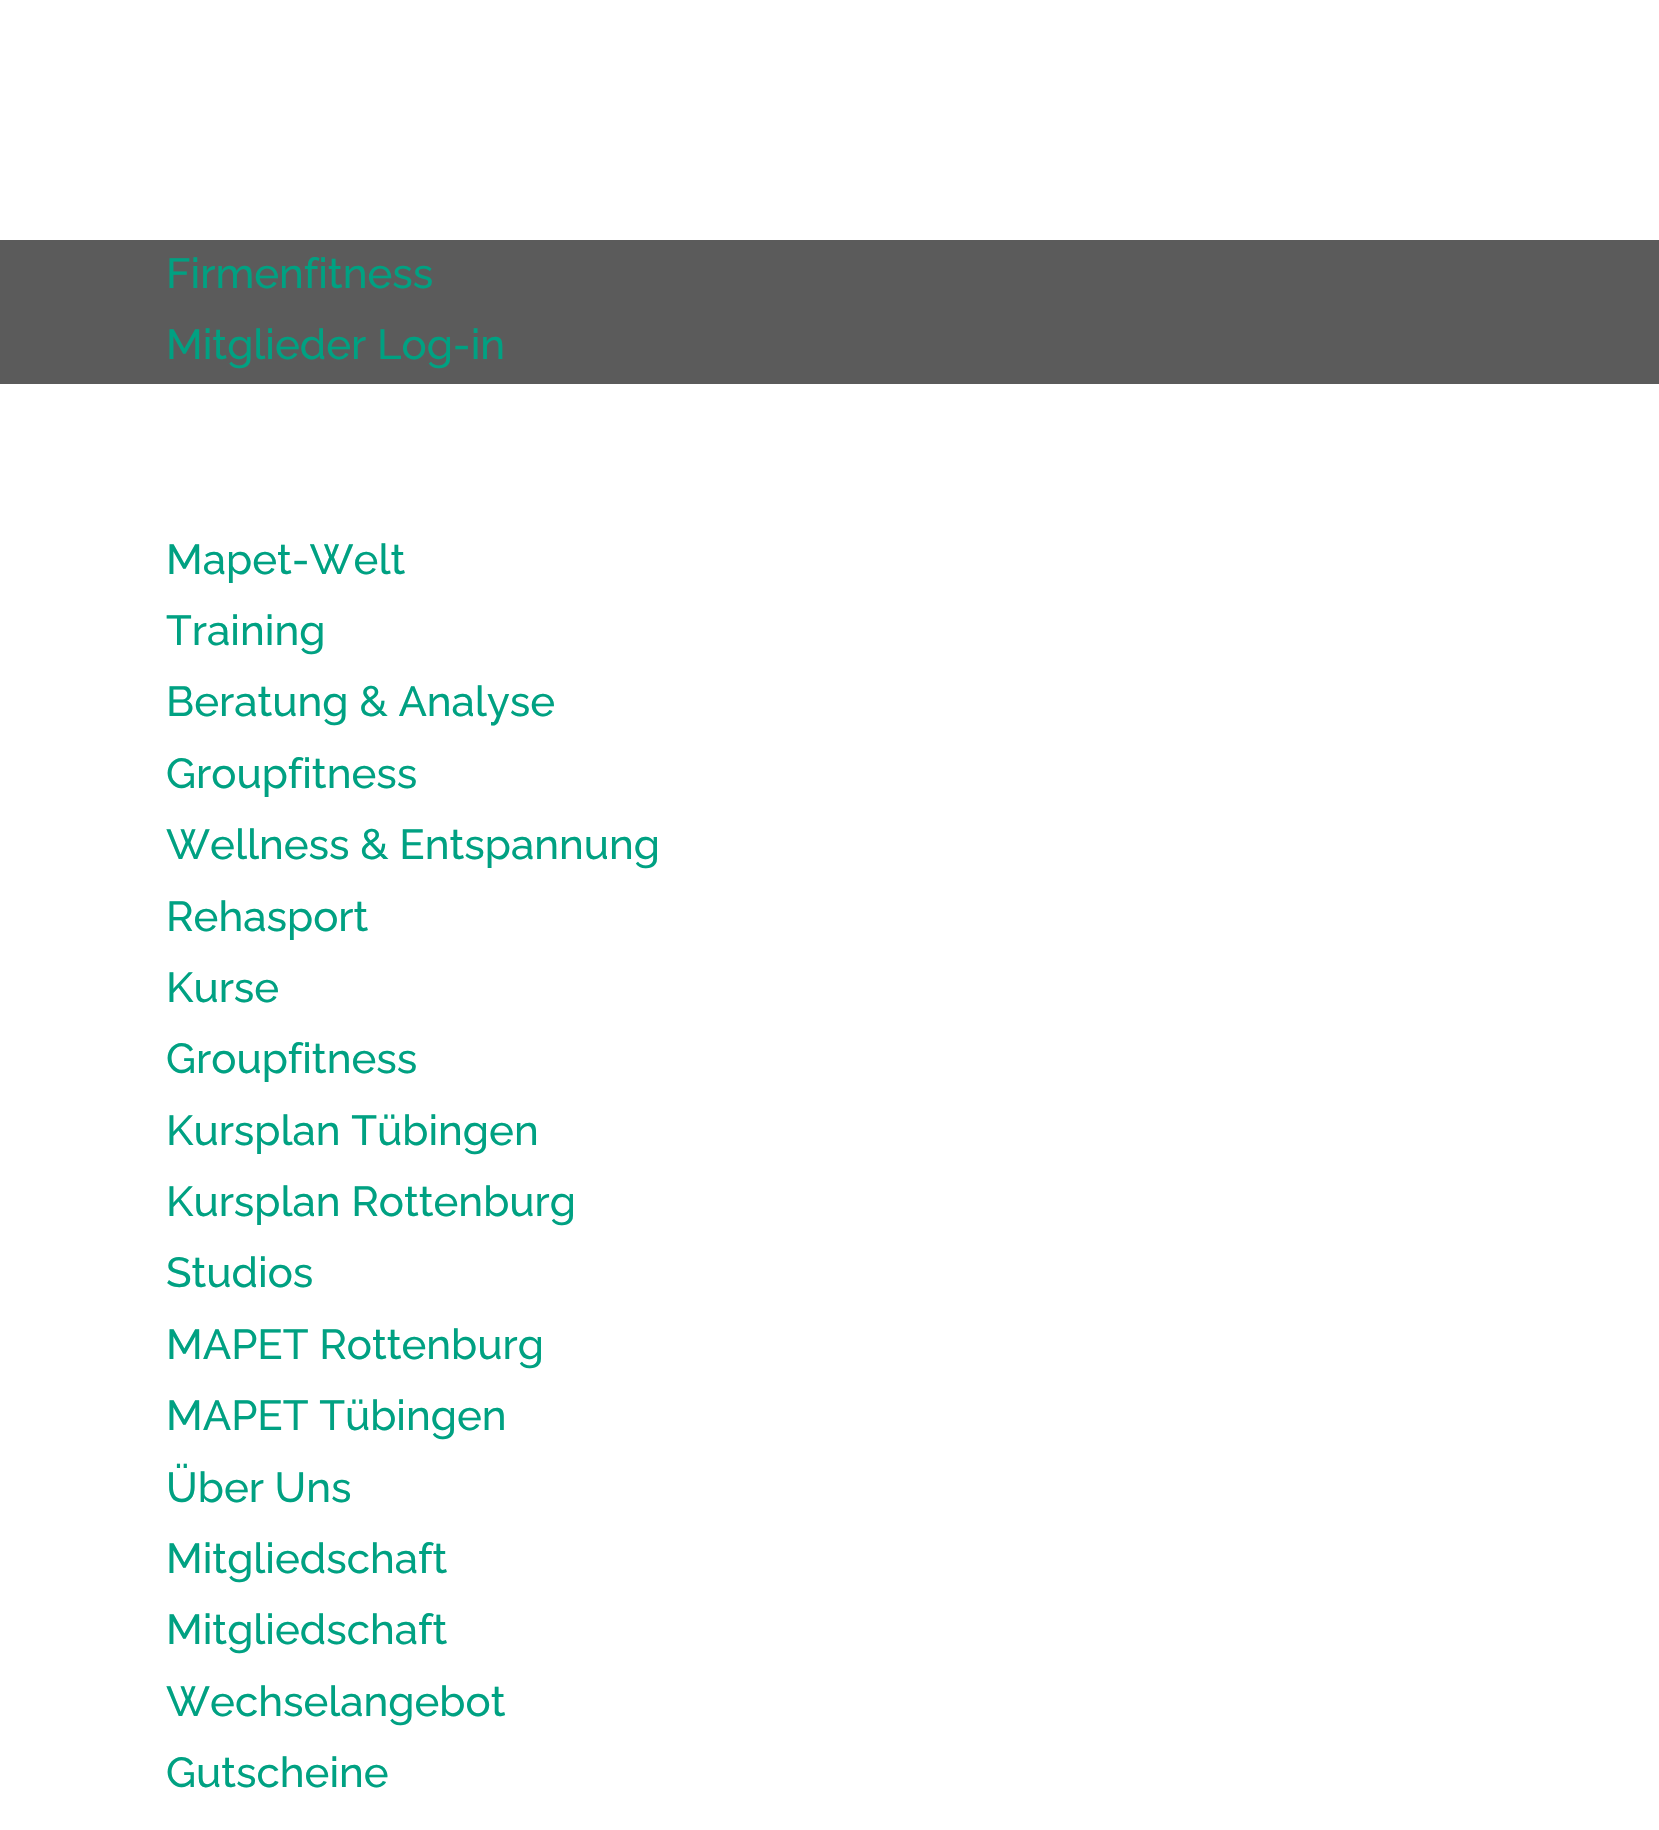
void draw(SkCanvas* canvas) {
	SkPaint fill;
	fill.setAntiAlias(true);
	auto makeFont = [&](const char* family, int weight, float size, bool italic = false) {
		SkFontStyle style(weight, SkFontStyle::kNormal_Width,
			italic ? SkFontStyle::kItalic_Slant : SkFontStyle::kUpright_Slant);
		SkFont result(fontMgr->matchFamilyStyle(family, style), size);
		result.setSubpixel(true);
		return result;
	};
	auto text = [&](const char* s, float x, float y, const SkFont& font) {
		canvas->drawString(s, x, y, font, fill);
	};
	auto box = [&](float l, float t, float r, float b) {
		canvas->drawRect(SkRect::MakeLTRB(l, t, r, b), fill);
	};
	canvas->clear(0xFFFFFFFF);
	fill.setColor(0xFF5B5B5B);
	box(0, 240, 1659, 384);
	auto font1 = makeFont("Raleway", 500, 42);
	fill.setColor(0xFF00A182);
	text("Firmenfitness", 166, 288, font1);
	text("Mitglieder Log-in", 166, 359, font1);
	text("Mapet-Welt", 166, 574, font1);
	text("Training", 166, 645, font1);
	text("Beratung & Analyse", 166, 716, font1);
	text("Groupfitness", 166, 788, font1);
	text("Wellness & Entspannung", 166, 859, font1);
	text("Rehasport", 166, 931, font1);
	text("Kurse", 166, 1002, font1);
	text("Groupfitness", 166, 1073, font1);
	text("Kursplan Tübingen", 166, 1145, font1);
	text("Kursplan Rottenburg", 166, 1216, font1);
	text("Studios", 166, 1287, font1);
	text("MAPET Rottenburg", 166, 1359, font1);
	text("MAPET Tübingen", 166, 1430, font1);
	text("Über Uns", 166, 1502, font1);
	text("Mitgliedschaft", 166, 1573, font1);
	text("Mitgliedschaft", 166, 1644, font1);
	text("Wechselangebot", 166, 1716, font1);
	text("Gutscheine", 166, 1787, font1);
}
